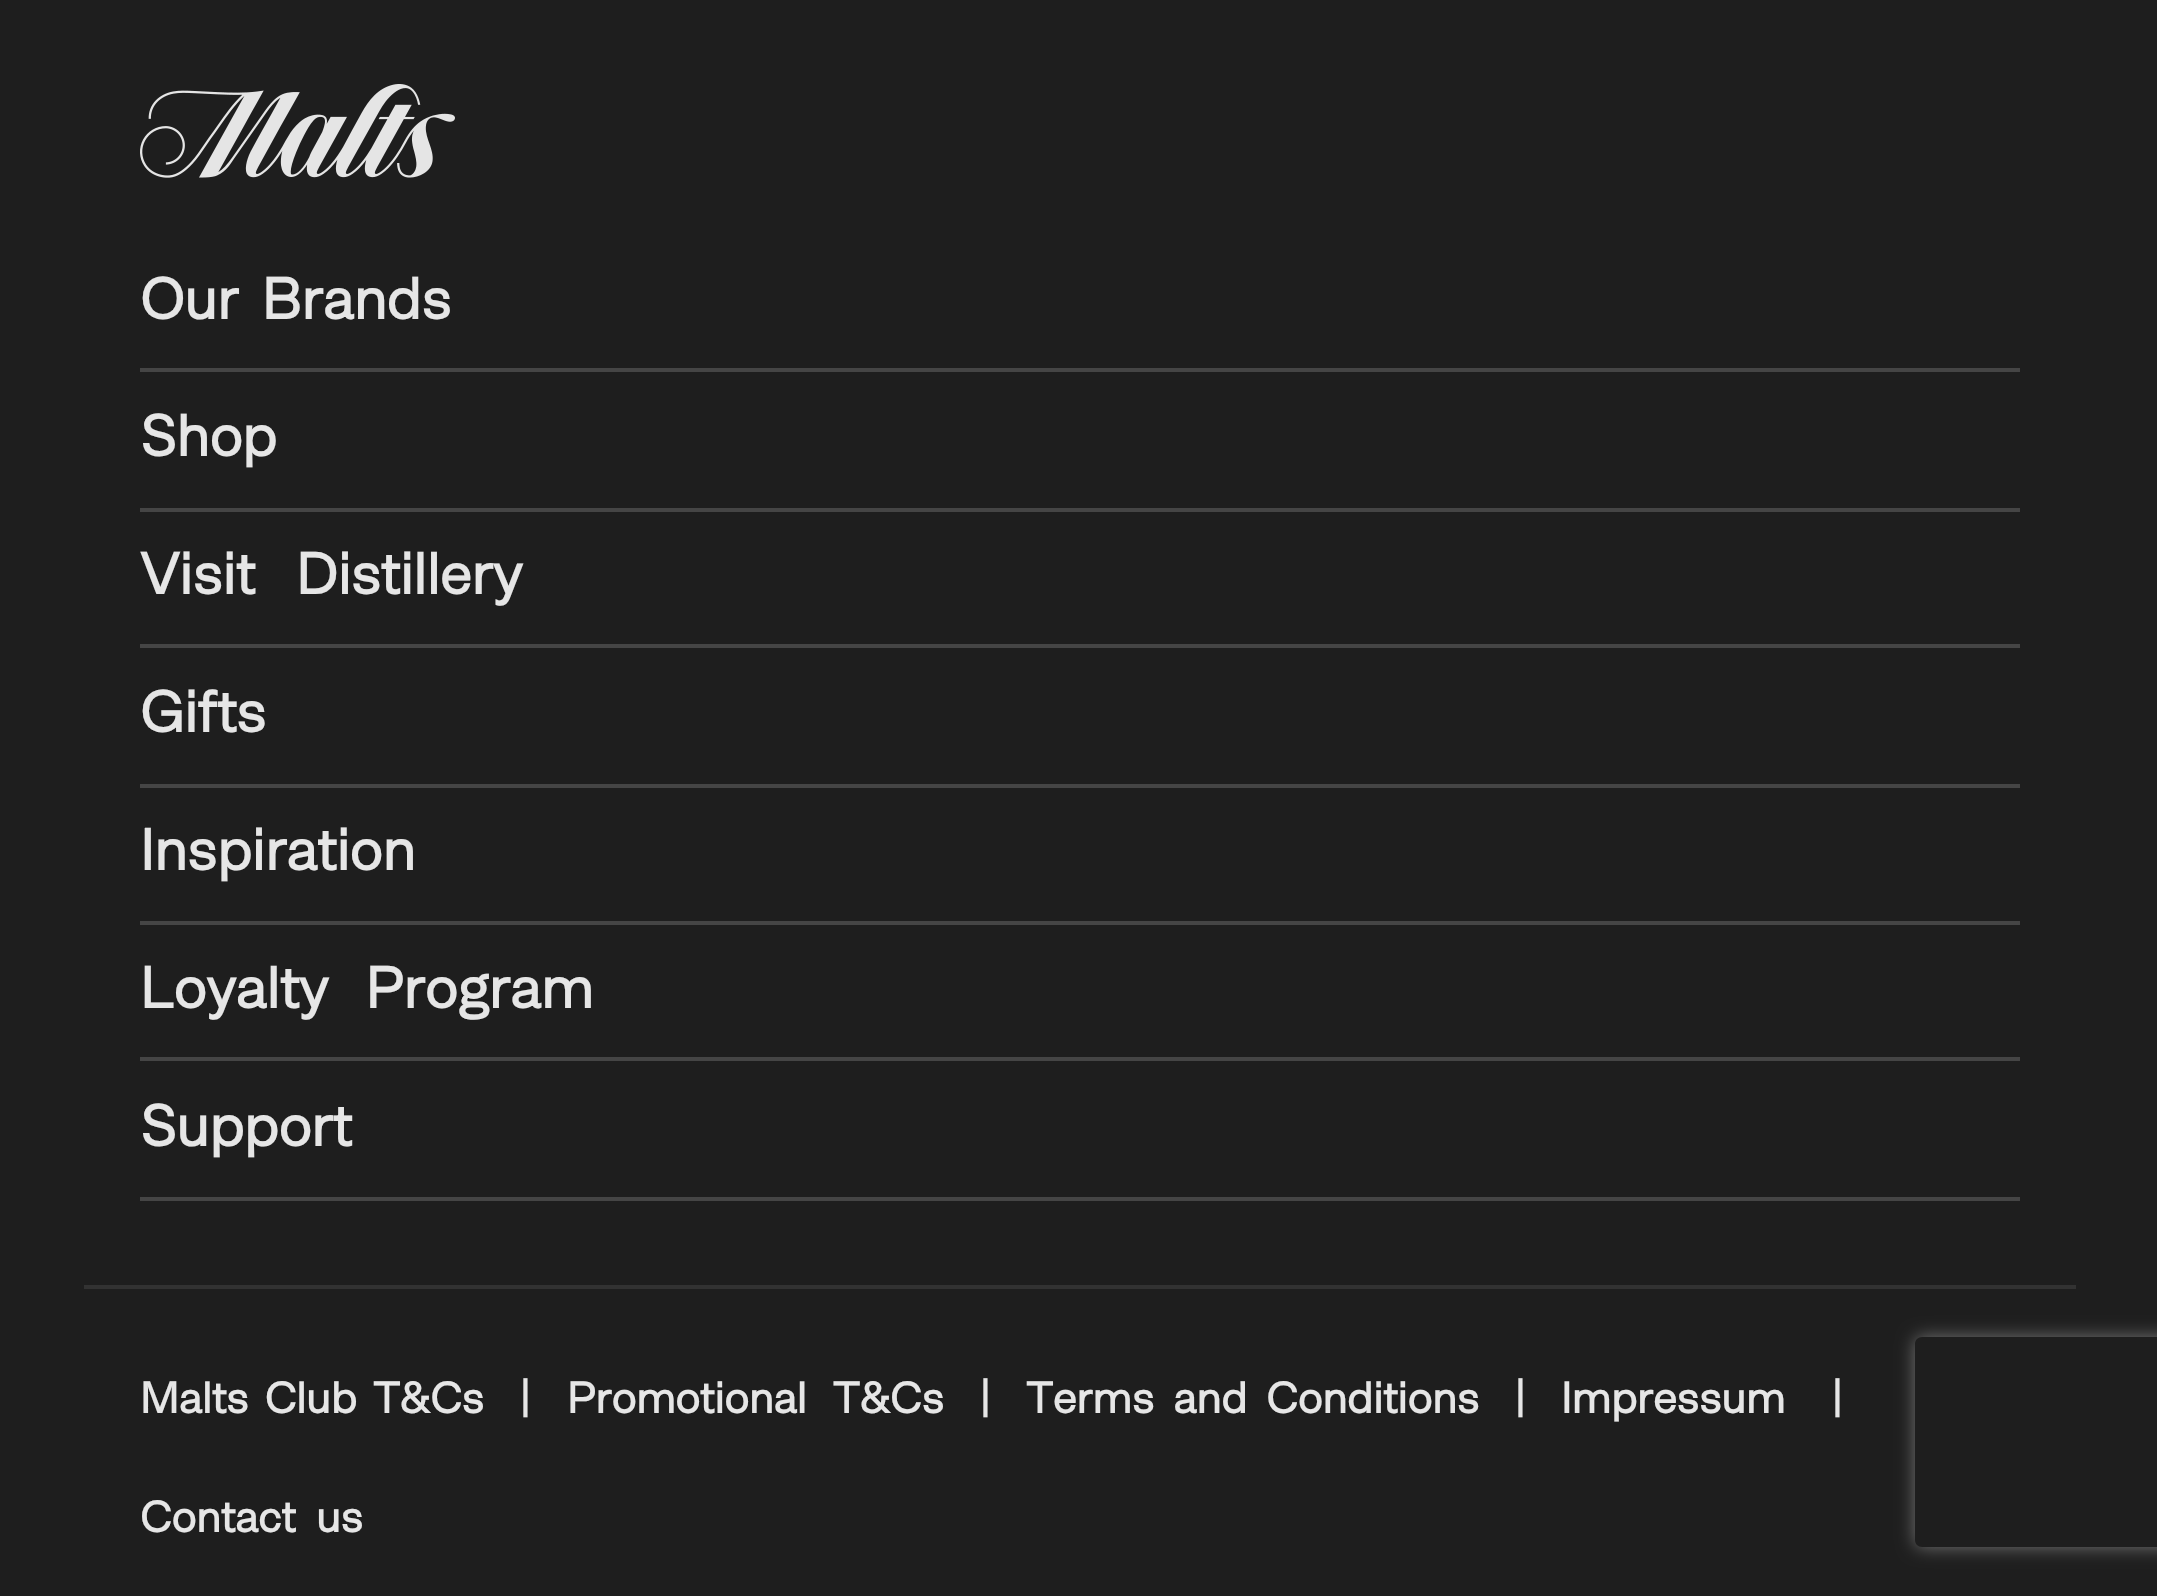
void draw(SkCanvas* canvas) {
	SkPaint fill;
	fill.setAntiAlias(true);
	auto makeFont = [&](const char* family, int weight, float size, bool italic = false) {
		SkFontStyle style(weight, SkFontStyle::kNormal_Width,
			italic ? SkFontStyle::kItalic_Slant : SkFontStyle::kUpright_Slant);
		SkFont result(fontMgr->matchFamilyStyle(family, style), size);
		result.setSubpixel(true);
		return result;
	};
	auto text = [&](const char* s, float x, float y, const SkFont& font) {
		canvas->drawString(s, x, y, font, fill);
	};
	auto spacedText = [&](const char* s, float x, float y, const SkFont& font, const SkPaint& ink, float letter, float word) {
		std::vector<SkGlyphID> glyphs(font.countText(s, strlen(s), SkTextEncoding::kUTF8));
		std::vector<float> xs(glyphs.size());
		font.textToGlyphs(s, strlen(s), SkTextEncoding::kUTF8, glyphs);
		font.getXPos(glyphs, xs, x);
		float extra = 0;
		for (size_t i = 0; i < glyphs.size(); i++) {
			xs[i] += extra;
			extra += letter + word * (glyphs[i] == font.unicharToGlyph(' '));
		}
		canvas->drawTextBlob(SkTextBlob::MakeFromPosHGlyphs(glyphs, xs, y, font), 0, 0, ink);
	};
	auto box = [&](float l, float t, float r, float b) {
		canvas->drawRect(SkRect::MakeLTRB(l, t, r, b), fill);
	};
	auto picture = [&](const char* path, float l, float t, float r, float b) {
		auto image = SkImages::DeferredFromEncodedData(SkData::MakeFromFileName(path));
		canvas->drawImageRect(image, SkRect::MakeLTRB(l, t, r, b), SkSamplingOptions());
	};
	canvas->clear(0xFF1E1E1E);
	picture("image0.png", 140, 84, 455, 178);
	fill.setColor(0xFF454545);
	box(140, 368, 2020, 372);
	box(140, 508, 2020, 512);
	box(140, 644, 2020, 648);
	box(140, 784, 2020, 788);
	box(140, 921, 2020, 925);
	box(140, 1057, 2020, 1061);
	box(140, 1197, 2020, 1201);
	fill.setColor(0xFF323232);
	box(84, 1285, 2076, 1289);
	canvas->save();
	canvas->clipPath(SkPathBuilder(SkPathFillType::kEvenOdd).moveTo(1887, 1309).lineTo(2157, 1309).lineTo(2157, 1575).lineTo(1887, 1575).close().moveTo(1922, 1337).lineTo(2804, 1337).cubicTo(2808, 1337, 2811, 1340, 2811, 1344).lineTo(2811, 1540).cubicTo(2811, 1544, 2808, 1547, 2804, 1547).lineTo(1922, 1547).cubicTo(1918, 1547, 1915, 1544, 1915, 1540).lineTo(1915, 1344).cubicTo(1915, 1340, 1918, 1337, 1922, 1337).close().detach(), true);
	fill.setColor(0xFF737373);
	fill.setMaskFilter(SkMaskFilter::MakeBlur(kNormal_SkBlurStyle, 9));
	canvas->drawRoundRect(SkRect::MakeLTRB(1915, 1337, 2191, 1547), 7, 7, fill);
	fill.setMaskFilter(nullptr);
	canvas->restore();
	auto font1 = makeFont("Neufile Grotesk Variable", 700, 56);
	fill.setColor(0xFFE6E6E6);
	spacedText("Our Brands", 140, 319, font1, fill, 0, 11);
	text("Shop", 140, 456, font1);
	spacedText("Visit Distillery", 140, 594, font1, fill, 0, 29);
	text("Gifts", 140, 732, font1);
	text("Inspiration", 140, 870, font1);
	spacedText("Loyalty Program", 140, 1008, font1, fill, 0, 25);
	text("Support", 140, 1146, font1);
	auto font2 = makeFont("Neufile Grotesk Variable", 700, 42);
	spacedText("Malts Club T&Cs", 140, 1413, font2, fill, 0, 7);
	text("|", 519, 1413, font2);
	spacedText("Promotional T&Cs", 567, 1413, font2, fill, 0, 17);
	text("|", 979, 1413, font2);
	spacedText("Terms and Conditions", 1026, 1413, font2, fill, 0, 10);
	text("|", 1514, 1413, font2);
	text("Impressum", 1561, 1413, font2);
	text("|", 1831, 1413, font2);
	spacedText("Contact us", 140, 1532, font2, fill, 0, 11);
}
